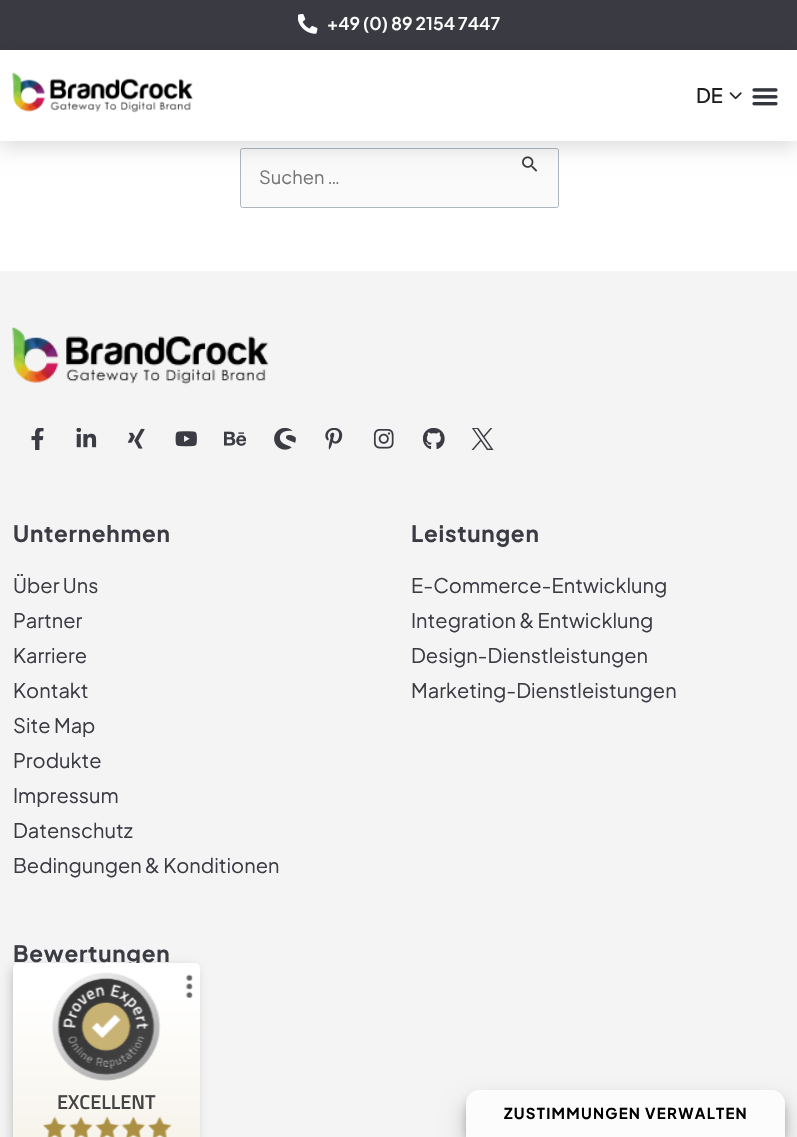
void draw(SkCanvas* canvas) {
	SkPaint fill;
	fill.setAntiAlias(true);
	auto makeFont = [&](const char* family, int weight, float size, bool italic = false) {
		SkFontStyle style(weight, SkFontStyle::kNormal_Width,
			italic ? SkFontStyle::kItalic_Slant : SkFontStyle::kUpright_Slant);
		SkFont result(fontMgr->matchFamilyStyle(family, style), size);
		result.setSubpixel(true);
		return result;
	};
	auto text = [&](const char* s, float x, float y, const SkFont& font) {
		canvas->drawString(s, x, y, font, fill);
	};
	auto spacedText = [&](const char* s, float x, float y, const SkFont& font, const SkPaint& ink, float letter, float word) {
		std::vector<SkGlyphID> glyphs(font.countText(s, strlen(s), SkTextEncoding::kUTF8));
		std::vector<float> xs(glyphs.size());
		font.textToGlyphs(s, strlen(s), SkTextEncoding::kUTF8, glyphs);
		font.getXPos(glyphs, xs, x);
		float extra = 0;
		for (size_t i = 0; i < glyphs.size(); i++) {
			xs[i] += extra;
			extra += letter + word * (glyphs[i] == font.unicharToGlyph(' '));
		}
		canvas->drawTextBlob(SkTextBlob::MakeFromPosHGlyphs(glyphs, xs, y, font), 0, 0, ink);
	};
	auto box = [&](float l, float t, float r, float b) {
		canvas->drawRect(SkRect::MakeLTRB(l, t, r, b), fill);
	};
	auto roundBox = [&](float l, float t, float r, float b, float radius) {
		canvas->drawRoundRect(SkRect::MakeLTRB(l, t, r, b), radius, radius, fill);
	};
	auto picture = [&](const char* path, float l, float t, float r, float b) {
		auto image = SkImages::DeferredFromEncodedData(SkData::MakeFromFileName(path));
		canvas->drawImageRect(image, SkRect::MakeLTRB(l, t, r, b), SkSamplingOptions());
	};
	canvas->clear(0xFFFFFFFF);
	fill.setColor(0xFF3A3A43);
	box(0, 0, 797, 50);
	picture("image0.png", 298, 14, 318, 34);
	fill.setColor(0xFFFAFAFA);
	canvas->drawRoundRect(SkRect::MakeLTRB(240.5f, 148.5f, 558.5f, 207.5f), 2, 2, fill);
	fill.setStyle(SkPaint::kStroke_Style);
	fill.setStrokeWidth(1);
	fill.setColor(0xFFADB6BE);
	canvas->drawRoundRect(SkRect::MakeLTRB(240.5f, 148.5f, 558.5f, 207.5f), 2, 2, fill);
	picture("image4.png", 522, 156, 538, 172);
	fill.setStyle(SkPaint::kFill_Style);
	fill.setColor(0x21000000);
	fill.setMaskFilter(SkMaskFilter::MakeBlur(kNormal_SkBlurStyle, 9.5f));
	canvas->drawRect(SkRect::MakeLTRB(0, 56, 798, 148), fill);
	fill.setMaskFilter(nullptr);
	fill.setColor(0xFFFFFFFF);
	box(0, 50, 797, 141);
	picture("image1.png", 12, 72, 193, 113);
	picture("image2.png", 729, 92, 742, 100);
	picture("image3.png", 752, 88, 778, 106);
	fill.setColor(0xFFF4F4F4);
	box(0, 271, 797, 1137);
	picture("image5.png", 12, 327, 269, 385);
	picture("image6.png", 31, 428, 44, 450);
	picture("image7.png", 76, 428, 97, 448);
	picture("image8.png", 127, 428, 145, 449);
	picture("image9.png", 175, 431, 197, 447);
	picture("image10.png", 224, 431, 246, 446);
	picture("image11.png", 274, 428, 296, 450);
	picture("image12.png", 325, 428, 343, 450);
	picture("image13.png", 373, 429, 394, 449);
	picture("image14.png", 423, 428, 445, 450);
	picture("image15.png", 471, 428, 494, 450);
	fill.setColor(0x40000000);
	fill.setMaskFilter(SkMaskFilter::MakeBlur(kNormal_SkBlurStyle, 6));
	canvas->drawRoundRect(SkRect::MakeLTRB(13, 968, 195, 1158), 2.5f, 2.5f, fill);
	fill.setMaskFilter(nullptr);
	fill.setColor(0x3B000000);
	fill.setMaskFilter(SkMaskFilter::MakeBlur(kNormal_SkBlurStyle, 4));
	canvas->drawRoundRect(SkRect::MakeLTRB(466, 1098, 785, 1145), 13, 13, fill);
	fill.setMaskFilter(nullptr);
	fill.setColor(0x30000000);
	fill.setMaskFilter(SkMaskFilter::MakeBlur(kNormal_SkBlurStyle, 12.5f));
	canvas->drawRoundRect(SkRect::MakeLTRB(466, 1103, 785, 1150), 13, 13, fill);
	fill.setMaskFilter(nullptr);
	fill.setColor(0xFFFCFCFC);
	canvas->drawPath(SkPathBuilder().moveTo(479, 1090).lineTo(772, 1090).cubicTo(779, 1090, 785, 1096, 785, 1103).lineTo(785, 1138).lineTo(466, 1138).lineTo(466, 1103).cubicTo(466, 1096, 472, 1090, 479, 1090).close().detach(), fill);
	auto font1 = makeFont("Plus Jakarta Sans", 600, 17.5f);
	fill.setColor(0xFFFFFFFF);
	text("+49 (0) 89 2154 7447", 327, 30, font1);
	auto font2 = makeFont("Plus Jakarta Sans", 500, 20);
	fill.setColor(0xFF1E1E1E);
	text("DE", 696, 103, font2);
	auto font3 = makeFont("Plus Jakarta Sans", 400, 18.25f);
	fill.setColor(0xFF757575);
	text("Suchen …", 259, 184, font3);
	auto font4 = makeFont("Plus Jakarta Sans", 700, 22.5f);
	fill.setColor(0xFF3B3B44);
	spacedText("Unternehmen", 13, 542, font4, fill, 0.75f, 0);
	auto font5 = makeFont("Plus Jakarta Sans", 400, 20);
	text("Über Uns", 13, 593, font5);
	text("Partner", 13, 628, font5);
	text("Karriere", 13, 663, font5);
	text("Kontakt", 13, 698, font5);
	text("Site Map", 13, 733, font5);
	text("Produkte", 13, 768, font5);
	text("Impressum", 13, 803, font5);
	text("Datenschutz", 13, 838, font5);
	text("Bedingungen & Konditionen", 13, 873, font5);
	spacedText("Leistungen", 411, 542, font4, fill, 0.75f, 0);
	text("E-Commerce-Entwicklung", 411, 593, font5);
	text("Integration & Entwicklung", 411, 628, font5);
	text("Design-Dienstleistungen", 411, 663, font5);
	text("Marketing-Dienstleistungen", 411, 698, font5);
	spacedText("Bewertungen", 13, 962, font4, fill, 0.75f, 0);
	{
		const SkColor colors[] = {0xFFF6F3EA, 0xFFFFFFFF};
		const float stops[] = {0.37f, 0.9f};
		const SkPoint ends[] = {{106, 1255}, {106, 963}};
		fill.setShader(SkGradientShader::MakeLinear(ends, colors, stops, 2, SkTileMode::kClamp));
		fill.setAlpha(255);
	}
	roundBox(13, 963, 200, 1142, 5);
	picture("image16.png", 52, 972, 161, 1081);
	picture("image17.png", 185, 974, 193, 998);
	auto font6 = makeFont("Titillium Web", 600, 20);
	fill.setShader(nullptr);
	fill.setColor(0xFF444444);
	text("EXCELLENT", 57, 1109, font6);
	picture("image18.png", 42, 1116, 67, 1137);
	picture("image19.png", 69, 1116, 93, 1137);
	picture("image20.png", 95, 1116, 120, 1137);
	picture("image21.png", 121, 1116, 145, 1137);
	picture("image18.png", 147, 1116, 172, 1137);
	auto font7 = makeFont("Plus Jakarta Sans", 700, 15);
	fill.setColor(0xFF000000);
	spacedText("ZUSTIMMUNGEN VERWALTEN", 504, 1119, font7, fill, 1.25f, 0);
}
